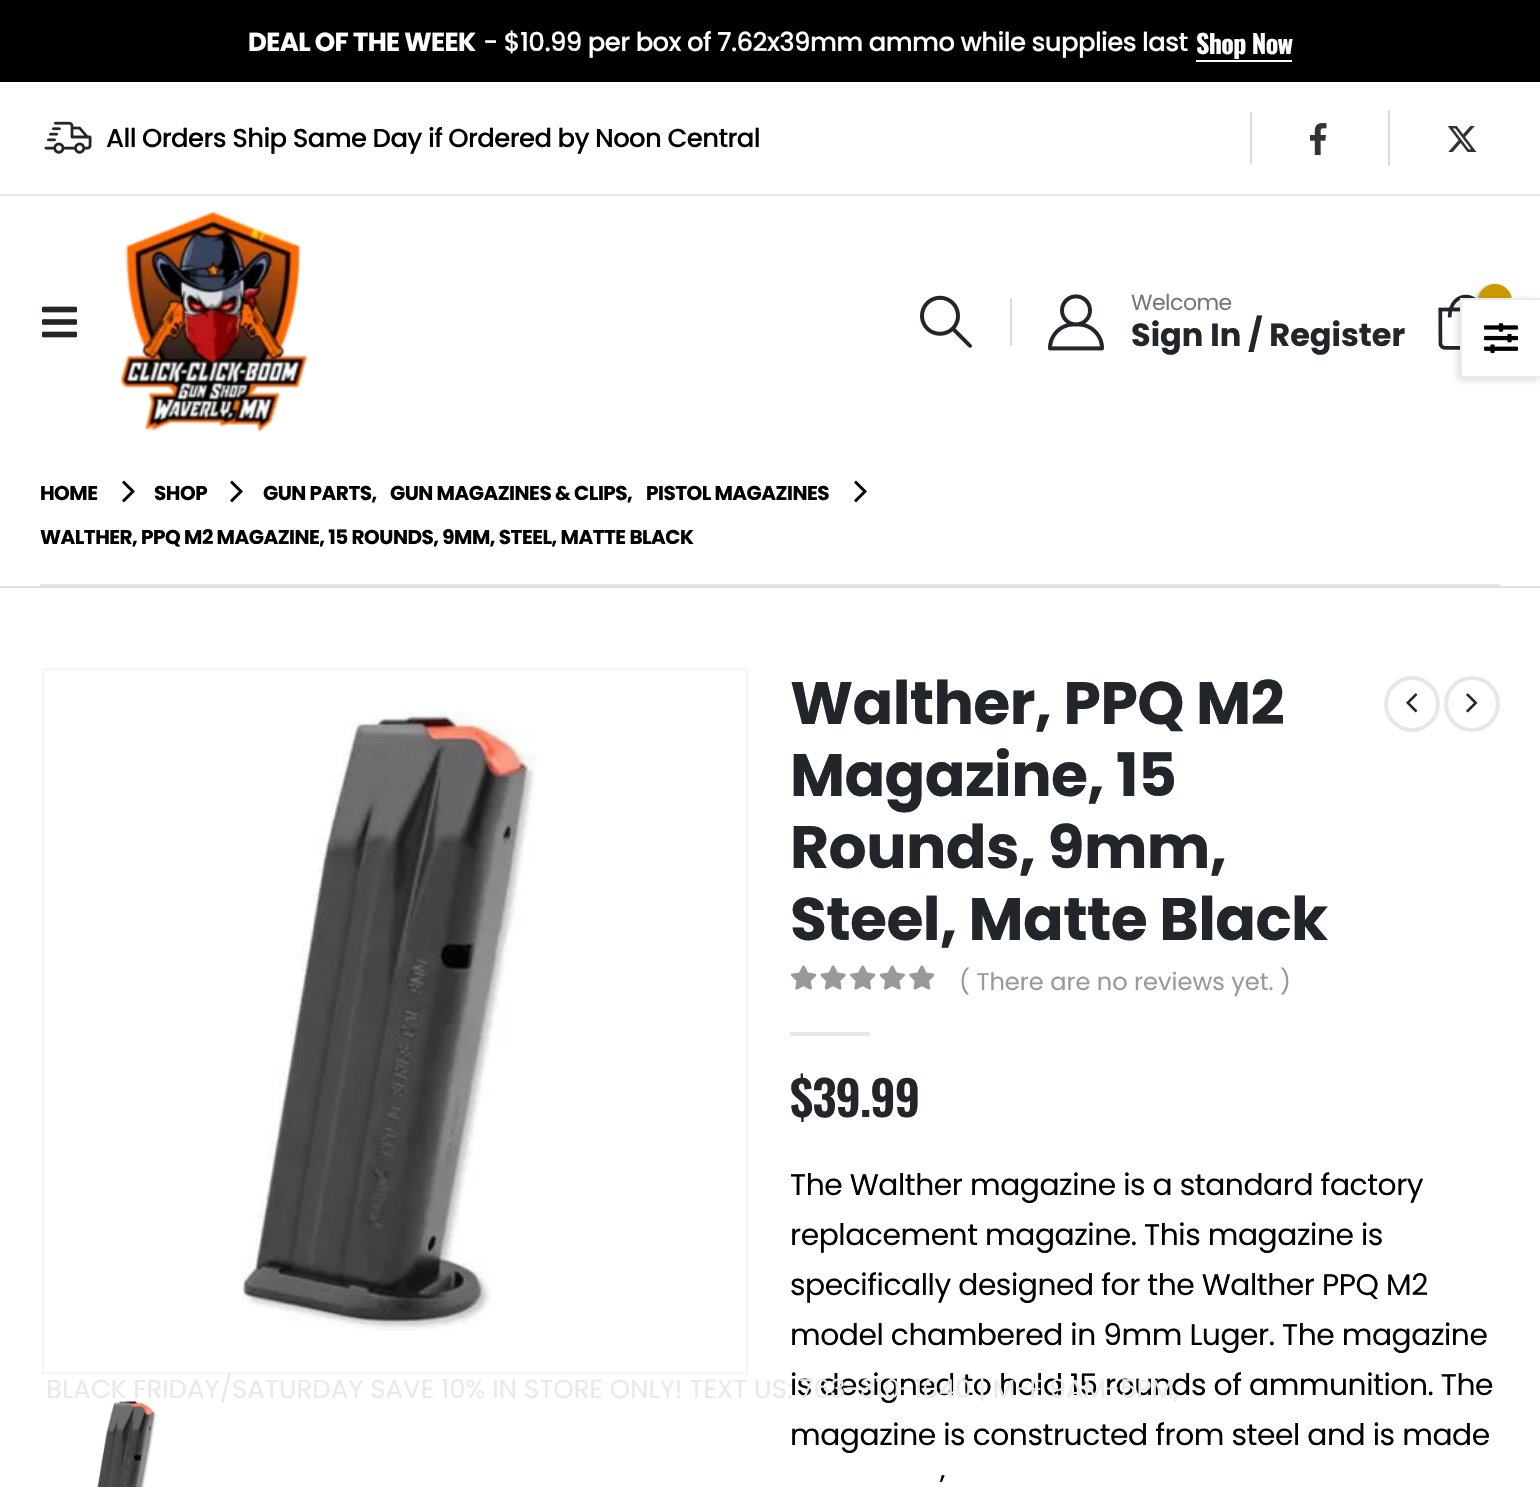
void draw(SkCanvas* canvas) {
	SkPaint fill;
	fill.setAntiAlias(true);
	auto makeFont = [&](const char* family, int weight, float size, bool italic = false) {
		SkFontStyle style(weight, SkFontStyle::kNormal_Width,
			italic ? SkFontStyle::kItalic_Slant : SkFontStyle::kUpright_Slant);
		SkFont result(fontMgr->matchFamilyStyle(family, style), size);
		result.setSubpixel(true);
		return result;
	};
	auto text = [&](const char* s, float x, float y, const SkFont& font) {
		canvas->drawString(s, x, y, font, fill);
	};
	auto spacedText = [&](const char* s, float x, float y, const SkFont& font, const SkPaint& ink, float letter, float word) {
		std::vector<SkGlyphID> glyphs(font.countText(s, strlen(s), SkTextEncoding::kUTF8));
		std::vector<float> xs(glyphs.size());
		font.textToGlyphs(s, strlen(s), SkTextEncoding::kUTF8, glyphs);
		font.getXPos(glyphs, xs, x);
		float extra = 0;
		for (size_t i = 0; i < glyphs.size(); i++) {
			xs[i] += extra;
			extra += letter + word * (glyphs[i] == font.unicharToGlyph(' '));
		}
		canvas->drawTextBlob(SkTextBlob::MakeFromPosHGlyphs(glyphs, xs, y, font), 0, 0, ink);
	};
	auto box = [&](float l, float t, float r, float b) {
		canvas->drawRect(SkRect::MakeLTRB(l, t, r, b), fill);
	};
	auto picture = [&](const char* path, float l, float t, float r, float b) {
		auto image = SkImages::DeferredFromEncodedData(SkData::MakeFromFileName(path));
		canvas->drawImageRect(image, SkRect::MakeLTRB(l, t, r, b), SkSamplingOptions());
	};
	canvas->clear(0xFFFFFFFF);
	fill.setColor(0xFF000000);
	box(0, 0, 1540, 82);
	fill.setColor(0xFFFFFFFF);
	box(1196, 60, 1292, 62);
	fill.setColor(0xFFE7E7E7);
	box(0, 194, 1540, 196);
	picture("image0.png", 44, 121, 92, 154);
	fill.setColor(0xFFDADCDD);
	box(1250, 112, 1252, 164);
	picture("image1.png", 1310, 123, 1327, 155);
	box(1388, 110, 1390, 166);
	picture("image2.png", 1447, 126, 1477, 152);
	picture("image3.png", 42, 306, 77, 338);
	picture("image4.png", 120, 212, 308, 432);
	picture("image5.png", 920, 295, 972, 348);
	box(1010, 298, 1012, 346);
	picture("image6.png", 1048, 294, 1104, 351);
	picture("image7.png", 1438, 294, 1476, 350);
	fill.setColor(0x4D000000);
	fill.setMaskFilter(SkMaskFilter::MakeBlur(kNormal_SkBlurStyle, 2));
	canvas->drawRoundRect(SkRect::MakeLTRB(1476, 286, 1510, 320), 17, 17, fill);
	fill.setMaskFilter(nullptr);
	fill.setColor(0xFFCC9900);
	canvas->drawCircle(1495, 301, 17, fill);
	fill.setColor(0xFFDFDFDF);
	box(0, 586, 1540, 588);
	picture("image8.png", 122, 480, 135, 503);
	picture("image8.png", 230, 480, 243, 503);
	picture("image8.png", 854, 480, 867, 503);
	fill.setColor(0xFFE7E7E7);
	box(40, 584, 1500, 586);
	fill.setColor(0x26000000);
	fill.setMaskFilter(SkMaskFilter::MakeBlur(kNormal_SkBlurStyle, 3));
	canvas->drawRect(SkRect::MakeLTRB(1458, 300, 1538, 380), fill);
	fill.setMaskFilter(nullptr);
	fill.setColor(0xFFFFFFFF);
	box(1460, 298, 1540, 378);
	fill.setColor(0xFFEBEBEB);
	canvas->drawPath(SkPathBuilder().moveTo(1460, 298).lineTo(1540, 298).lineTo(1540, 300).lineTo(1462, 300).close().detach(), fill);
	canvas->drawPath(SkPathBuilder().moveTo(1540, 378).lineTo(1460, 378).lineTo(1462, 376).lineTo(1540, 376).close().detach(), fill);
	fill.setColor(0x14000000);
	canvas->drawPath(SkPathBuilder().moveTo(1460, 378).lineTo(1460, 298).lineTo(1462, 300).lineTo(1462, 376).close().detach(), fill);
	picture("image9.png", 1484, 323, 1518, 353);
	fill.setStyle(SkPaint::kStroke_Style);
	fill.setStrokeWidth(2);
	fill.setColor(0xFFF4F4F4);
	canvas->drawRect(SkRect::MakeLTRB(43, 669, 747, 1373), fill);
	picture("image10.png", 242, 711, 536, 1331);
	picture("image11.png", 97, 1400, 157, 1487);
	fill.setStrokeWidth(4);
	fill.setColor(0xFFE7E7E7);
	canvas->drawCircle(1412, 704, 26, fill);
	picture("image12.png", 1406, 693, 1418, 713);
	canvas->drawCircle(1472, 704, 26, fill);
	picture("image13.png", 1466, 693, 1478, 713);
	picture("image14.png", 791, 965, 934, 990);
	fill.setStyle(SkPaint::kFill_Style);
	box(790, 1032, 870, 1036);
	auto font1 = makeFont("Poppins", 700, 26);
	fill.setColor(0xFFFFFFFF);
	spacedText("DEAL OF THE WEEK", 248, 51, font1, fill, -0.65f, 0);
	auto font2 = makeFont("Poppins", 500, 26);
	spacedText("- $10.99 per box of 7.62x39mm ammo while supplies last", 483, 51, font2, fill, -0.65f, 0);
	auto font3 = makeFont("Oswald", 700, 26);
	spacedText("Shop Now", 1196, 54, font3, fill, -0.65f, 0);
	fill.setColor(0xFF000000);
	spacedText("All Orders Ship Same Day if Ordered by Noon Central", 106, 147, font2, fill, -0.65f, 0);
	auto font4 = makeFont("Poppins", 400, 22);
	fill.setColor(0xFF777777);
	spacedText("Welcome", 1131, 310, font4, fill, -0.5f, 0);
	auto font5 = makeFont("Poppins", 700, 32);
	fill.setColor(0xFF222529);
	text("Sign In / Register", 1131, 346, font5);
	auto font6 = makeFont("Poppins", 700, 20);
	fill.setColor(0xFF000000);
	spacedText("HOME", 40, 500, font6, fill, -0.5f, 0);
	spacedText("SHOP", 154, 500, font6, fill, -0.5f, 0);
	spacedText("GUN PARTS,", 263, 500, font6, fill, -0.5f, 0);
	spacedText("GUN MAGAZINES & CLIPS,", 390, 500, font6, fill, -0.5f, 0);
	spacedText("PISTOL MAGAZINES", 646, 500, font6, fill, -0.5f, 0);
	spacedText("WALTHER, PPQ M2 MAGAZINE, 15 ROUNDS, 9MM, STEEL, MATTE BLACK", 40, 544, font6, fill, -0.5f, 0);
	auto font7 = makeFont("Poppins", 700, 60);
	fill.setColor(0xFF222529);
	spacedText("Walther, PPQ M2", 790, 724, font7, fill, -0.6f, 0);
	spacedText("Magazine, 15", 790, 796, font7, fill, -0.6f, 0);
	spacedText("Rounds, 9mm,", 790, 868, font7, fill, -0.6f, 0);
	spacedText("Steel, Matte Black", 790, 940, font7, fill, -0.6f, 0);
	auto font8 = makeFont("Poppins", 400, 24.1f);
	fill.setColor(0xFF999999);
	text("( There are no reviews yet. )", 959, 990, font8);
	auto font9 = makeFont("Oswald", 600, 48);
	fill.setColor(0xFF222529);
	spacedText("$39.99", 790, 1117, font9, fill, -1, 0);
	auto font10 = makeFont("Poppins", 400, 29.75f);
	fill.setColor(0xFF000000);
	spacedText("The Walther magazine is a standard factory", 790, 1195, font10, fill, -0.45f, 0);
	spacedText("replacement magazine. This magazine is", 790, 1245, font10, fill, -0.45f, 0);
	spacedText("specifically designed for the Walther PPQ M2", 790, 1295, font10, fill, -0.45f, 0);
	spacedText("model chambered in 9mm Luger. The magazine", 790, 1345, font10, fill, -0.45f, 0);
	spacedText("is designed to hold 15 rounds of ammunition. The", 790, 1395, font10, fill, -0.45f, 0);
	spacedText("magazine is constructed from steel and is made", 790, 1445, font10, fill, -0.45f, 0);
	spacedText("’", 939, 1496, font10, fill, -0.45f, 0);
	auto font11 = makeFont("Poppins", 400, 26);
	fill.setColor(0xFFE9E9E9);
	text("BLACK FRIDAY/SATURDAY SAVE 10% IN STORE ONLY! TEXT US: 763-310-1040 | M-F 9AM-5PM,", 46, 1398, font11);
}
